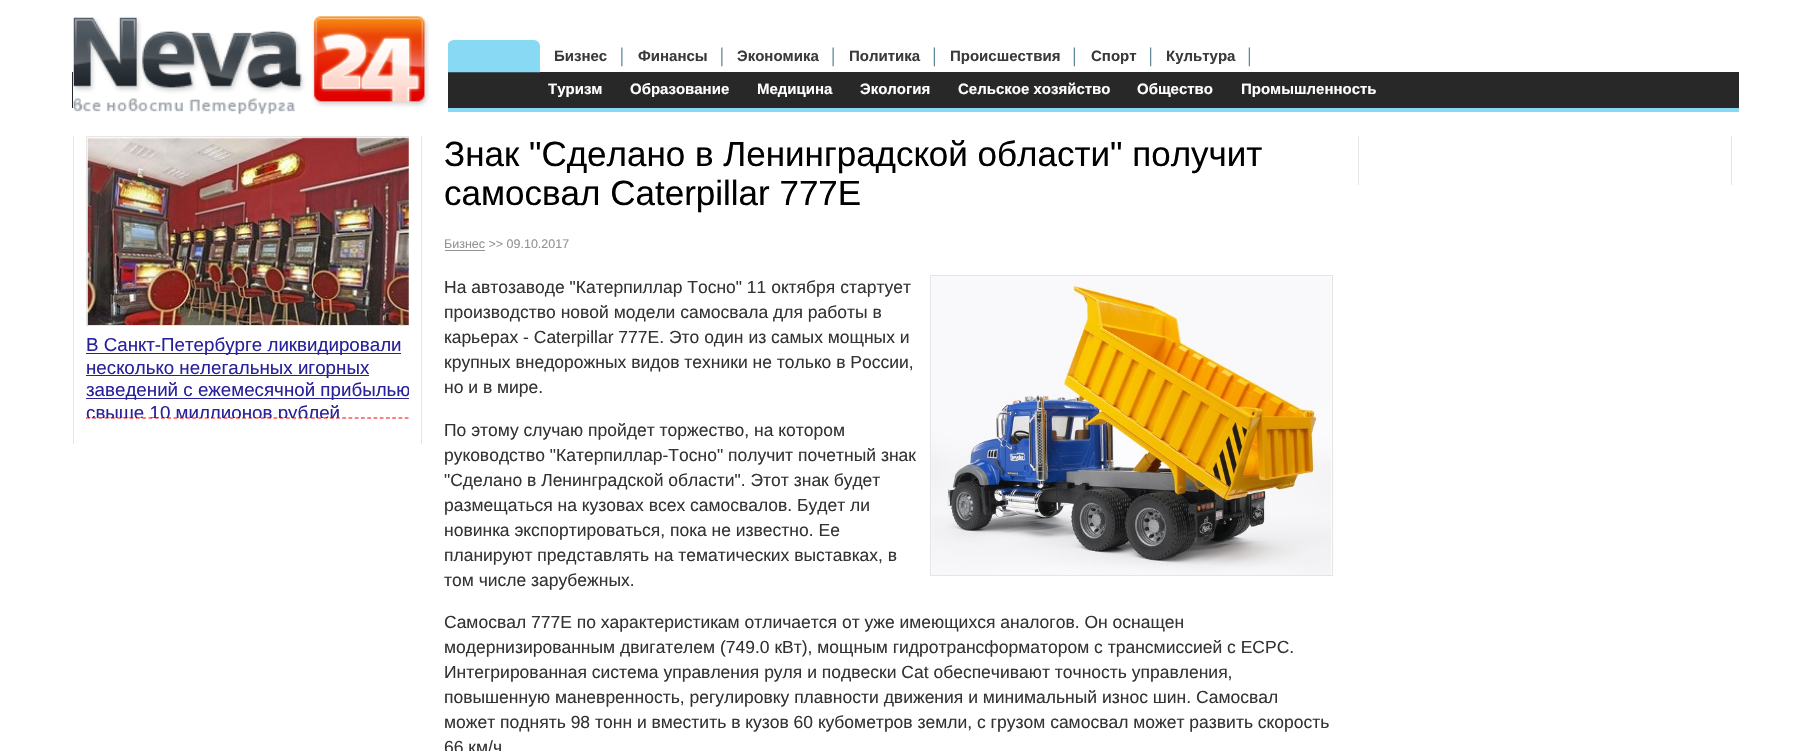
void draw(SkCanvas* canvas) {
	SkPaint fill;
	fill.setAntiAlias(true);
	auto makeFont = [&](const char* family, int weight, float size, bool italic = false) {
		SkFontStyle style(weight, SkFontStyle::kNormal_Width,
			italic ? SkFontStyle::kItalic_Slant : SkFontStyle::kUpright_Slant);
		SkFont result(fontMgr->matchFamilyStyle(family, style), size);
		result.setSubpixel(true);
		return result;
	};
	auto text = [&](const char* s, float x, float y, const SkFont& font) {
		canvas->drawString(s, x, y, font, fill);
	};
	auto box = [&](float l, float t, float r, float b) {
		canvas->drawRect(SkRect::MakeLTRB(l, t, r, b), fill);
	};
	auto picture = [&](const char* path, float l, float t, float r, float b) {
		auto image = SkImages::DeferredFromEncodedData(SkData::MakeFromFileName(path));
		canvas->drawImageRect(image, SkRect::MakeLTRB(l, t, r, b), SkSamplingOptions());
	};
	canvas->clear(0xFFFFFFFF);
	fill.setColor(0xFF282828);
	box(72, 72, 1739, 108);
	fill.setColor(0xFF88D9F4);
	box(448, 108, 1739, 112);
	fill.setColor(0xFFFFFFFF);
	box(73, 72, 448, 108);
	picture("image0.png", 73, 16, 429, 114);
	picture("image1.png", 621, 47, 623, 67);
	picture("image1.png", 721, 47, 723, 67);
	picture("image2.png", 832, 47, 834, 67);
	picture("image3.png", 933, 47, 935, 67);
	picture("image3.png", 1073, 47, 1075, 67);
	picture("image4.png", 1150, 47, 1152, 67);
	picture("image3.png", 1248, 47, 1250, 67);
	picture("image5.png", 448, 40, 540, 73);
	fill.setColor(0xFFE4E4E4);
	box(421, 136, 422, 444);
	box(73, 136, 74, 444);
	fill.setStyle(SkPaint::kStroke_Style);
	fill.setStrokeWidth(1.2f);
	fill.setColor(0xFFFF0000);
	fill.setPathEffect(SkDashPathEffect::Make({{3.75f, 2.5f}}, 0));
	canvas->drawPath(SkPathBuilder().moveTo(86, 418).lineTo(409, 418).detach(), fill);
	fill.setPathEffect(nullptr);
	canvas->save();
	canvas->clipRect(SkRect::MakeLTRB(86, 136, 409, 418));
	fill.setStrokeWidth(1);
	fill.setColor(0xFFE6E6E6);
	canvas->drawRect(SkRect::MakeLTRB(86.5f, 136.5f, 413.5f, 325.5f), fill);
	canvas->restore();
	picture("image6.png", 87, 137, 409, 325);
	fill.setStyle(SkPaint::kFill_Style);
	fill.setColor(0xFF29219B);
	box(86, 353, 401, 354);
	box(86, 375, 369, 376);
	box(86, 398, 409, 399);
	fill.setColor(0xFF939393);
	box(445, 250, 485, 251);
	fill.setStyle(SkPaint::kStroke_Style);
	fill.setColor(0xFFE4E4E4);
	canvas->drawRect(SkRect::MakeLTRB(930.5f, 275.5f, 1332.5f, 575.5f), fill);
	picture("image7.png", 931, 276, 1332, 575);
	fill.setStyle(SkPaint::kFill_Style);
	box(1731, 136, 1732, 185);
	box(1358, 136, 1359, 185);
	auto font1 = makeFont("Liberation Sans", 700, 15);
	fill.setColor(0xFF3A3A3A);
	text("Бизнес", 554, 61, font1);
	text("Финансы", 638, 61, font1);
	text("Экономика", 737, 61, font1);
	text("Политика", 849, 61, font1);
	text("Происшествия", 950, 61, font1);
	text("Спорт", 1091, 61, font1);
	text("Культура", 1166, 61, font1);
	fill.setColor(0xFFFFFFFF);
	text("Туризм", 548, 94, font1);
	text("Образование", 630, 94, font1);
	text("Медицина", 757, 94, font1);
	text("Экология", 860, 94, font1);
	text("Сельское хозяйство", 958, 94, font1);
	text("Общество", 1137, 94, font1);
	text("Промышленность", 1241, 94, font1);
	auto font2 = makeFont("Liberation Sans", 400, 18.75f);
	fill.setColor(0xFF29219B);
	text("В Санкт-Петербурге ликвидировали", 86, 351, font2);
	text("несколько нелегальных игорных", 86, 374, font2);
	canvas->save();
	canvas->clipRect(SkRect::MakeLTRB(86, 324, 409, 418));
	text("заведений с ежемесячной прибылью", 86, 396, font2);
	text("свыше 10 миллионов рублей", 86, 419, font2);
	canvas->restore();
	auto font3 = makeFont("Liberation Sans", 400, 35);
	fill.setColor(0xFF000000);
	text("Знак \"Сделано в Ленинградской области\" получит", 444, 166, font3);
	text("самосвал Caterpillar 777E", 444, 205, font3);
	auto font4 = makeFont("Liberation Sans", 400, 12.5f);
	fill.setColor(0xFF939393);
	text("Бизнес >> 09.10.2017", 444, 248, font4);
	auto font5 = makeFont("Liberation Sans", 400, 17.5f);
	fill.setColor(0xFF333333);
	text("На автозаводе \"Катерпиллар Тосно\" 11 октября стартует", 444, 293, font5);
	text("производство новой модели самосвала для работы в", 444, 318, font5);
	text("карьерах - Caterpillar 777E. Это один из самых мощных и", 444, 343, font5);
	text("крупных внедорожных видов техники не только в России,", 444, 368, font5);
	text("но и в мире.", 444, 393, font5);
	text("По этому случаю пройдет торжество, на котором", 444, 436, font5);
	text("руководство \"Катерпиллар-Тосно\" получит почетный знак", 444, 461, font5);
	text("\"Сделано в Ленинградской области\". Этот знак будет", 444, 486, font5);
	text("размещаться на кузовах всех самосвалов. Будет ли", 444, 511, font5);
	text("новинка экспортироваться, пока не известно. Ее", 444, 536, font5);
	text("планируют представлять на тематических выставках, в", 444, 561, font5);
	text("том числе зарубежных.", 444, 586, font5);
	text("Самосвал 777E по характеристикам отличается от уже имеющихся аналогов. Он оснащен", 444, 628, font5);
	text("модернизированным двигателем (749.0 кВт), мощным гидротрансформатором с трансмиссией с ECPC.", 444, 653, font5);
	text("Интегрированная система управления руля и подвески Cat обеспечивают точность управления,", 444, 678, font5);
	text("повышенную маневренность, регулировку плавности движения и минимальный износ шин. Самосвал", 444, 703, font5);
	text("может поднять 98 тонн и вместить в кузов 60 кубометров земли, с грузом самосвал может развить скорость", 444, 728, font5);
	text("66 км/ч", 444, 753, font5);
}
